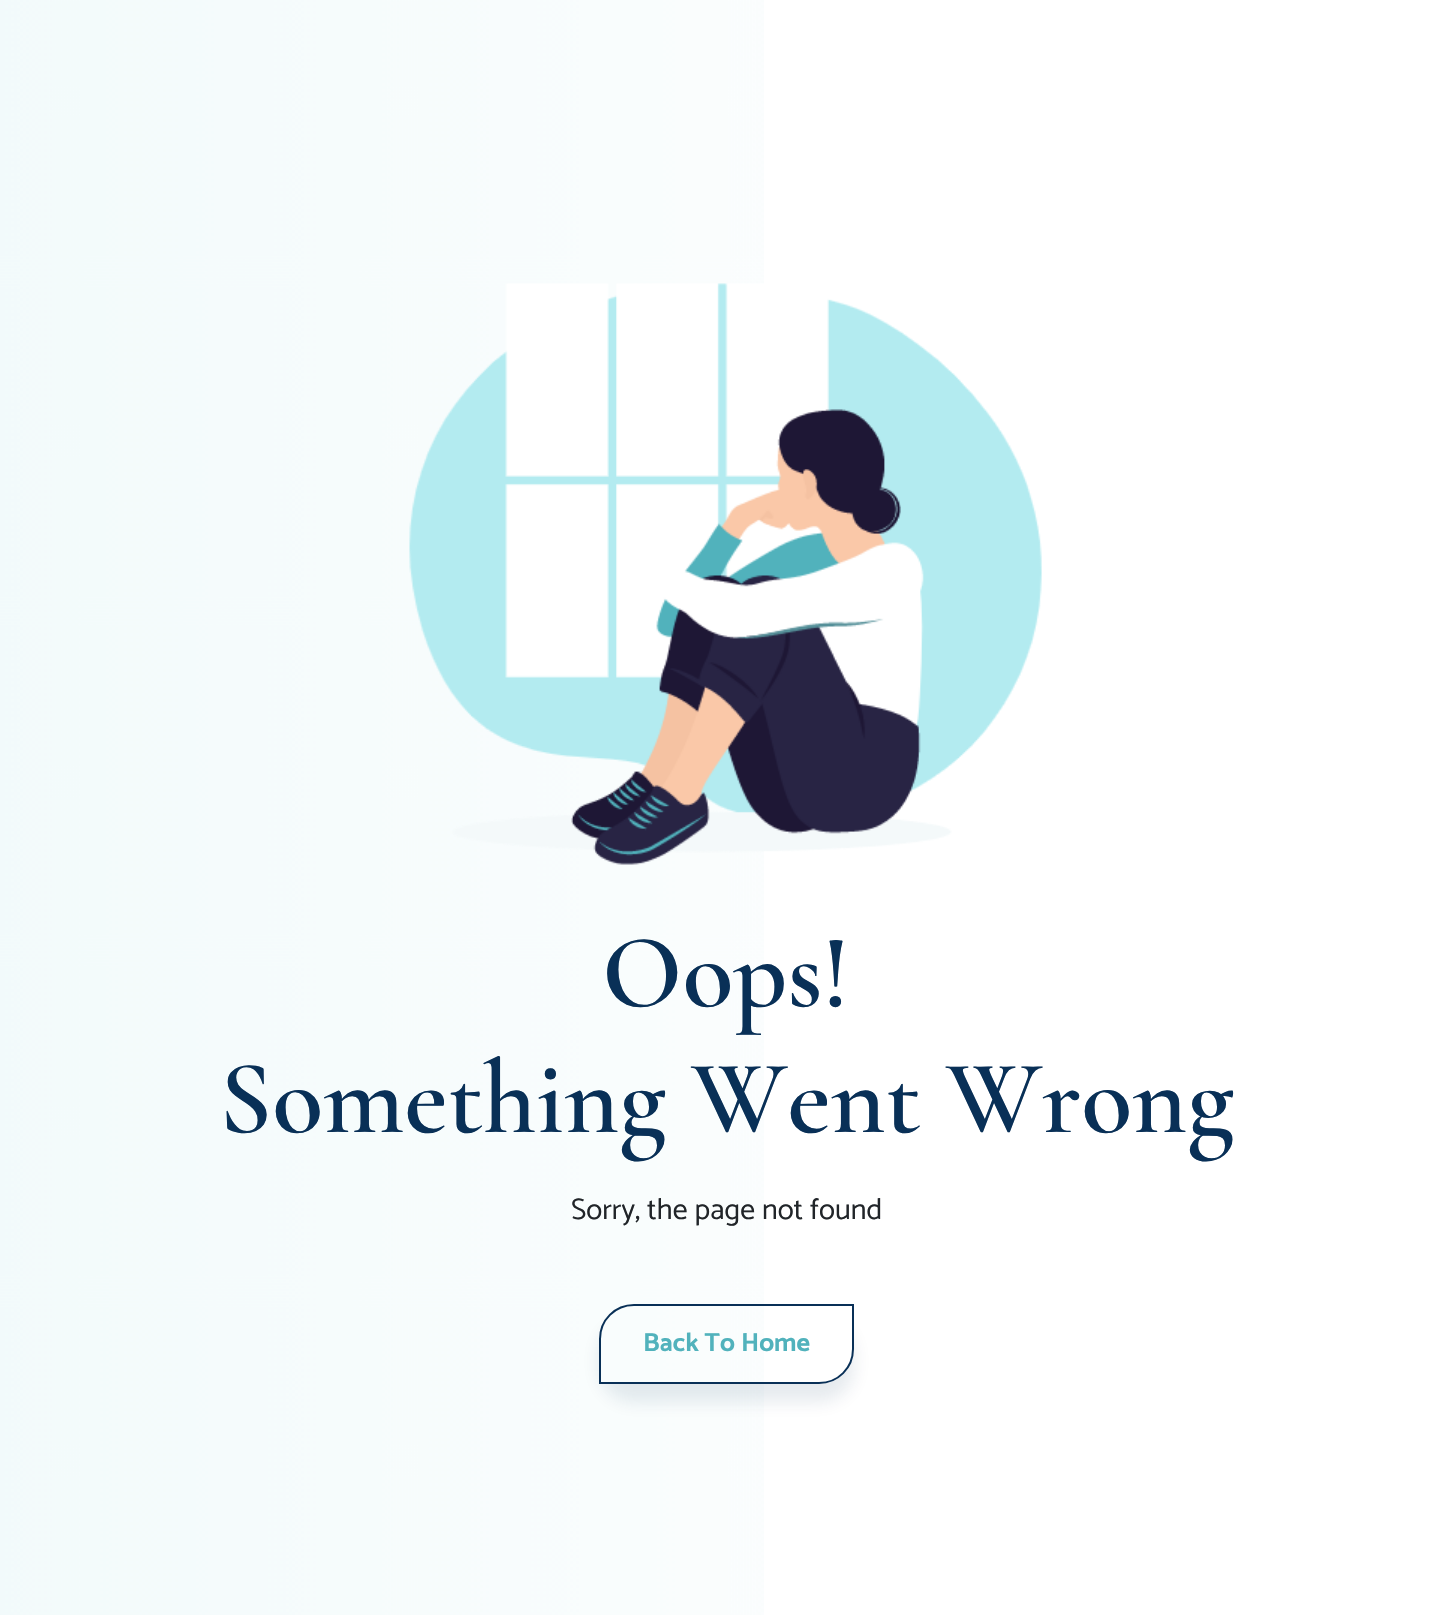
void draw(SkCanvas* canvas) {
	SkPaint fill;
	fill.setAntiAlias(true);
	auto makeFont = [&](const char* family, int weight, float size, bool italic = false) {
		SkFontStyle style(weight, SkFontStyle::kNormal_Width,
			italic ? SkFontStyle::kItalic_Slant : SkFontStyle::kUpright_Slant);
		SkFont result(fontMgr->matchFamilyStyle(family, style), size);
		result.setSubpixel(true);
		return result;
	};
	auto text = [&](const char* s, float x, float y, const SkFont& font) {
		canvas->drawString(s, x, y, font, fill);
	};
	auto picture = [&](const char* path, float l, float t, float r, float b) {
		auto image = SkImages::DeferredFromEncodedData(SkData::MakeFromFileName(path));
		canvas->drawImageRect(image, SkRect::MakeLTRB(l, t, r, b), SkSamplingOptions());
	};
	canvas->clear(0xFFFFFFFF);
	picture("image0.png", 0, 0, 764, 1615);
	picture("image1.png", 409, 283, 1042, 865);
	canvas->save();
	canvas->clipPath(SkPathBuilder(SkPathFillType::kEvenOdd).moveTo(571, 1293).lineTo(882, 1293).lineTo(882, 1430).lineTo(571, 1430).close().moveTo(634, 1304).lineTo(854, 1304).lineTo(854, 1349).cubicTo(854, 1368.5f, 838.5f, 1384, 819, 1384).lineTo(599, 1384).lineTo(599, 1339).cubicTo(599, 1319.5f, 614.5f, 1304, 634, 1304).close().detach(), true);
	fill.setColor(0x1A093057);
	fill.setMaskFilter(SkMaskFilter::MakeBlur(kNormal_SkBlurStyle, 9));
	canvas->drawRoundRect(SkRect::MakeLTRB(599, 1321, 854, 1402), 35, 35, fill);
	fill.setMaskFilter(nullptr);
	canvas->restore();
	fill.setStyle(SkPaint::kStroke_Style);
	fill.setStrokeWidth(2);
	fill.setColor(0xFF093057);
	canvas->drawPath(SkPathBuilder().moveTo(634, 1305).lineTo(853, 1305).lineTo(853, 1349).cubicTo(853, 1368, 838, 1383, 819, 1383).lineTo(600, 1383).lineTo(600, 1339).cubicTo(600, 1320, 615, 1305, 634, 1305).close().detach(), fill);
	auto font1 = makeFont("Cormorant Garamond", 600, 105);
	fill.setStyle(SkPaint::kFill_Style);
	text("Oops!", 602, 1006, font1);
	text("Something Went Wrong", 219, 1132, font1);
	auto font2 = makeFont("Catamaran", 400, 29.75f);
	fill.setColor(0xFF212529);
	text("Sorry, the page not found", 571, 1219, font2);
	auto font3 = makeFont("Catamaran", 700, 26.25f);
	fill.setColor(0xFF51B2BC);
	text("Back To Home", 643, 1351, font3);
}
